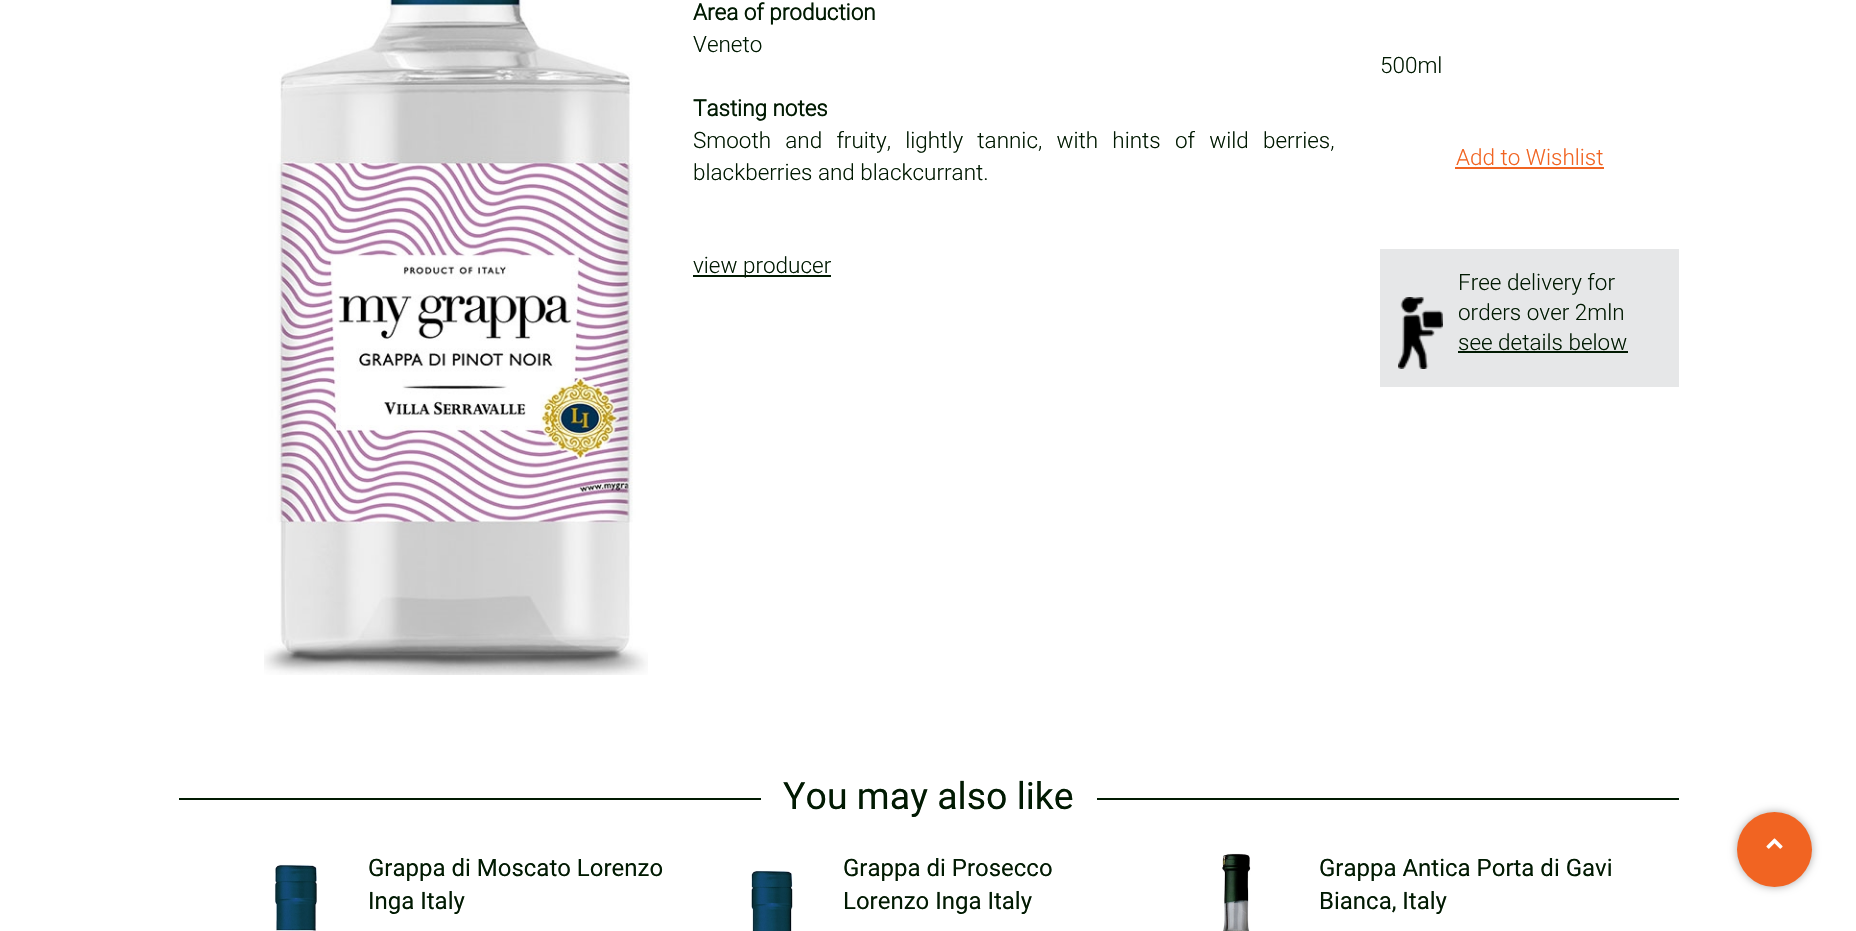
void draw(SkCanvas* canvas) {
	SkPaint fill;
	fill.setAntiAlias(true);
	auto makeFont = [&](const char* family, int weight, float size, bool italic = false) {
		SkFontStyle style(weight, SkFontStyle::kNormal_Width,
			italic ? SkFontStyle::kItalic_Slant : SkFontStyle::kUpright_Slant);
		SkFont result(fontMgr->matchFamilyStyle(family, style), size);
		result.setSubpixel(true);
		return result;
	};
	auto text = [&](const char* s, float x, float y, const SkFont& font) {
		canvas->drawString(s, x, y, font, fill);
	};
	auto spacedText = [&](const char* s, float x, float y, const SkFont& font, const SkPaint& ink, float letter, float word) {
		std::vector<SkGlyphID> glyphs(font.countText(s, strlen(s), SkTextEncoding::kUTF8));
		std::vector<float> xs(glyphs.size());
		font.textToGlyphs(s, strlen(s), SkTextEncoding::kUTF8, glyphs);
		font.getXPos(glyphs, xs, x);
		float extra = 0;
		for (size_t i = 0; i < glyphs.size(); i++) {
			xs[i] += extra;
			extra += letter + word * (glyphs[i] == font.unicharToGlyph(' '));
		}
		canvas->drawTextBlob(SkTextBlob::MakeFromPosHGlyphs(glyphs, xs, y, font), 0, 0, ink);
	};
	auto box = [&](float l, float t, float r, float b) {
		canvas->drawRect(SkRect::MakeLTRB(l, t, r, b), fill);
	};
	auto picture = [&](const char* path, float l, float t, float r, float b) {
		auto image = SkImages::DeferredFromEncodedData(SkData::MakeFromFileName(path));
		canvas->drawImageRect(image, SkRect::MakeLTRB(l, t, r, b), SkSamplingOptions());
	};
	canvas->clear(0xFFFFFFFF);
	picture("image0.png", 264, 0, 648, 675);
	fill.setColor(0xFF011A02);
	box(693, 275, 831, 277);
	fill.setColor(0xFFF16422);
	box(1455, 167, 1604, 169);
	fill.setColor(0xFFE6E7E8);
	box(1380, 249, 1679, 387);
	picture("image1.png", 1398, 297, 1443, 369);
	fill.setColor(0xFF011A02);
	box(1458, 351, 1628, 353);
	box(179, 798, 1679, 800);
	fill.setColor(0xFFFFFFFF);
	box(761, 798, 1097, 800);
	picture("image2.png", 274, 864, 317, 931);
	picture("image3.png", 751, 870, 793, 931);
	picture("image4.png", 1222, 853, 1251, 931);
	fill.setColor(0xFFAAAAAA);
	fill.setMaskFilter(SkMaskFilter::MakeBlur(kNormal_SkBlurStyle, 4.5f));
	canvas->drawRoundRect(SkRect::MakeLTRB(1737, 812, 1812, 887), 37.5f, 37.5f, fill);
	fill.setMaskFilter(nullptr);
	fill.setColor(0xFFF16422);
	canvas->drawCircle(1774.5f, 849.5f, 37.5f, fill);
	picture("image5.png", 1766, 838, 1783, 849);
	auto font1 = makeFont("Roboto", 700, 22.5f);
	fill.setColor(0xFF011A02);
	text("Area of production", 693, 20, font1);
	auto font2 = makeFont("Roboto", 300, 22.5f);
	text("Veneto", 693, 52, font2);
	text("Tasting notes", 693, 116, font1);
	spacedText("Smooth and fruity, lightly tannic, with hints of wild berries,", 693, 148, font2, fill, 0, 8.75f);
	text("blackberries and blackcurrant.", 693, 180, font2);
	text("view producer", 693, 273, font2);
	text("500ml", 1380, 73, font2);
	fill.setColor(0xFFF16422);
	text("Add to Wishlist", 1456, 165, font2);
	fill.setColor(0xFF011A02);
	text("Free delivery for", 1458, 290, font2);
	text("orders over 2mln", 1458, 320, font2);
	text("see details below", 1458, 350, font2);
	auto font3 = makeFont("Roboto", 400, 37.5f);
	text("You may also like", 783, 809, font3);
	auto font4 = makeFont("Roboto", 400, 24);
	text("Grappa di Moscato Lorenzo", 368, 876, font4);
	text("Inga Italy", 368, 909, font4);
	text("Grappa di Prosecco", 843, 876, font4);
	text("Lorenzo Inga Italy", 843, 909, font4);
	text("Grappa Antica Porta di Gavi", 1319, 876, font4);
	text("Bianca, Italy", 1319, 909, font4);
}
